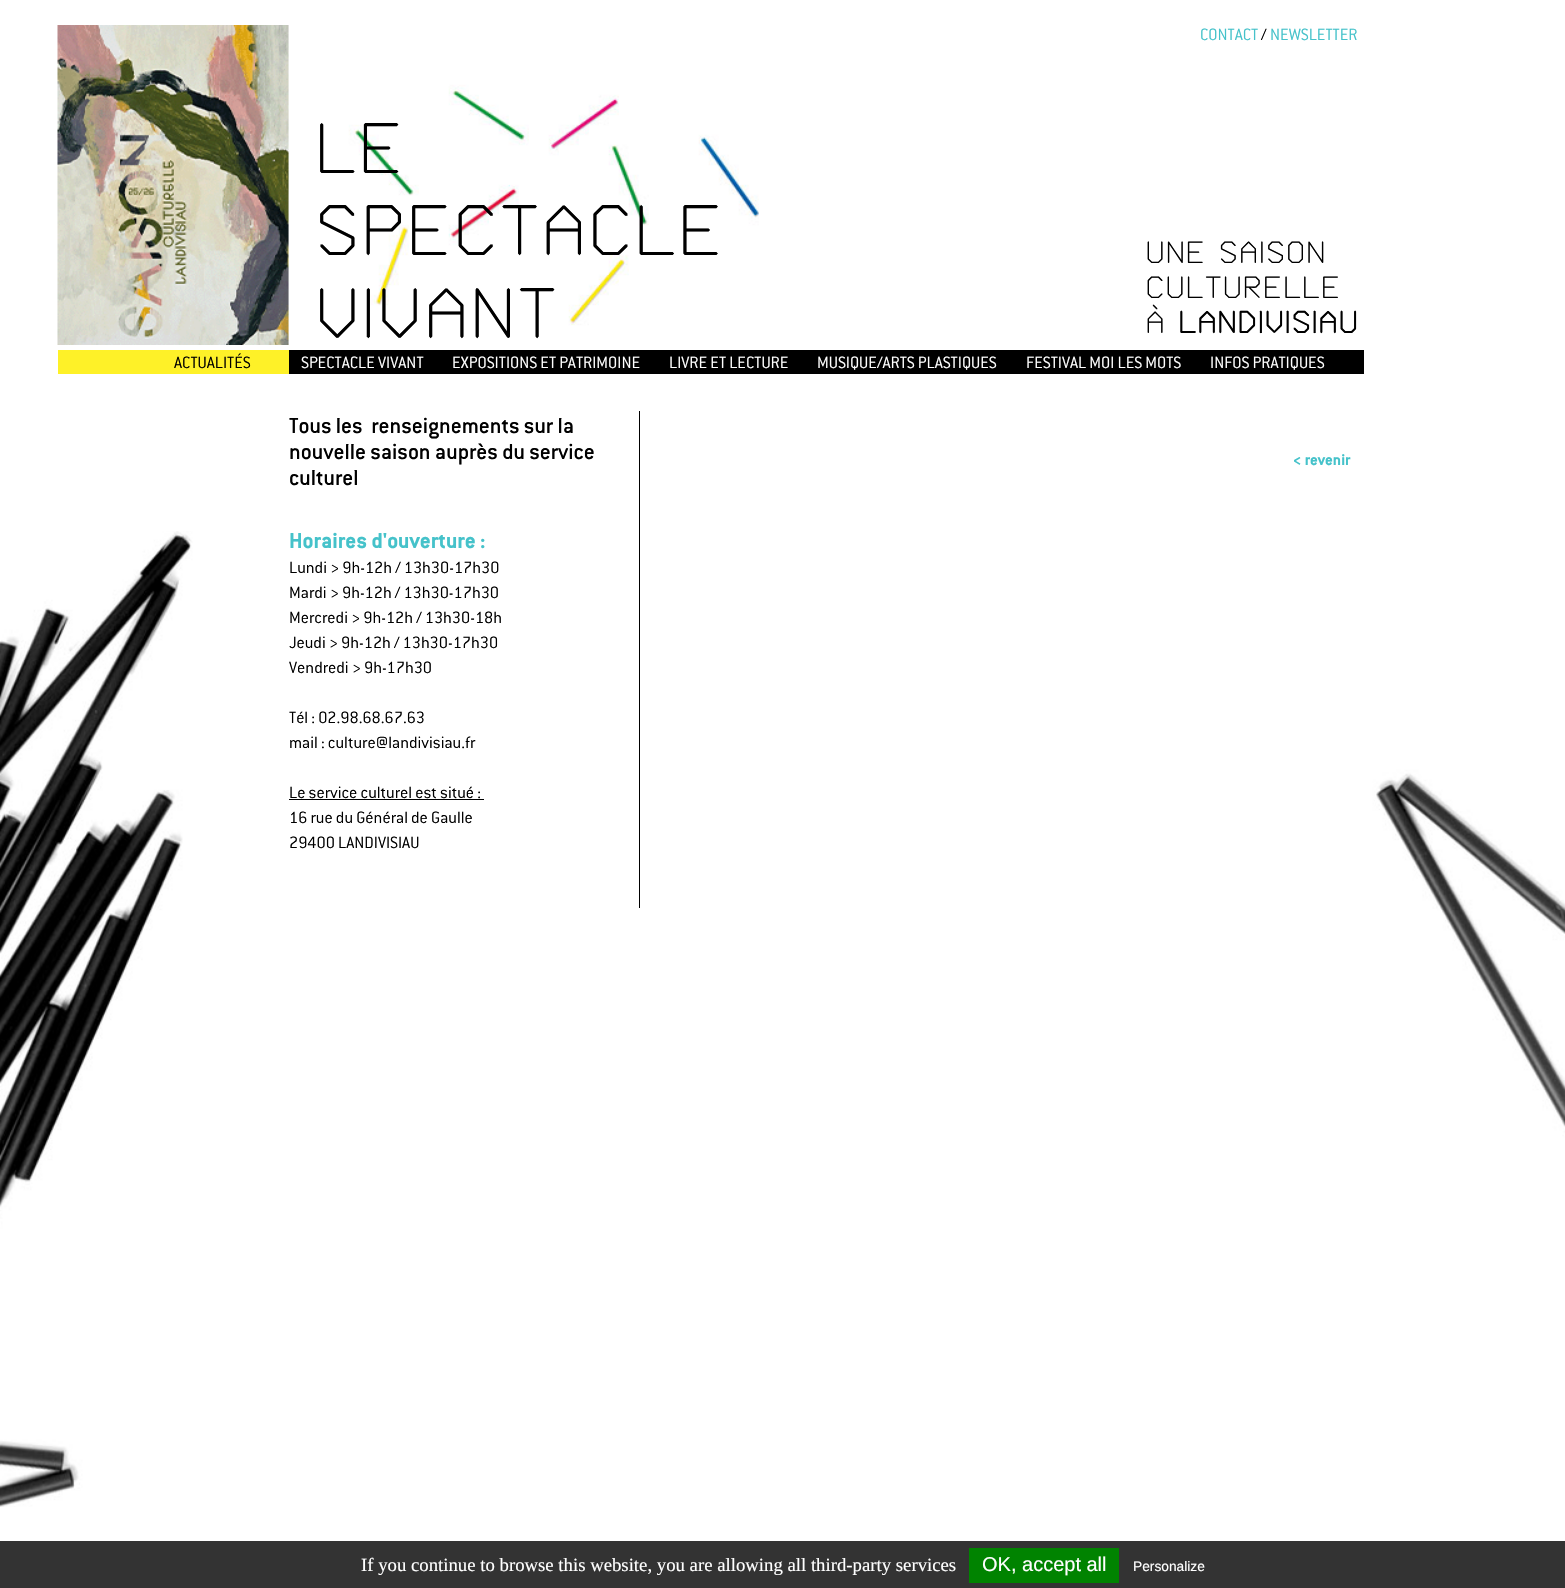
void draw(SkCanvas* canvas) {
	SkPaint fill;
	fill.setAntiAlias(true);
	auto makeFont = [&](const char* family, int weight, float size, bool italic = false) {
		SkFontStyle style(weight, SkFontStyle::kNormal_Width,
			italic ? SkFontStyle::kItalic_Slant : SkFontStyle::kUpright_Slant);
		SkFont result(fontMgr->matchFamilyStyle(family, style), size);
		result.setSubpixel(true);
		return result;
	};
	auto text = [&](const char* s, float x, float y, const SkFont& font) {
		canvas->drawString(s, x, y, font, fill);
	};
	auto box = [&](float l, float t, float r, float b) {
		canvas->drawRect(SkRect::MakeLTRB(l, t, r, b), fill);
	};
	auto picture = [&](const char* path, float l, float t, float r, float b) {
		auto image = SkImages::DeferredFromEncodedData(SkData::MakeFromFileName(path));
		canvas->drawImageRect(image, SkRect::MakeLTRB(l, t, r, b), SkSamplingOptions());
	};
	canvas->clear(0xFFFFFFFF);
	picture("image0.png", 0, 531, 1565, 1507);
	picture("image1.png", 57, 25, 289, 345);
	picture("image2.png", 288, 25, 759, 345);
	fill.setColor(0xFFFEF128);
	box(58, 350, 289, 374);
	fill.setColor(0xFF000000);
	box(289, 350, 1364, 374);
	box(639, 411, 640, 908);
	box(289, 799, 484, 800);
	fill.setColor(0xFF333333);
	box(0, 1541, 1565, 1588);
	fill.setColor(0xFF008300);
	box(969, 1548, 1119, 1583);
	auto font1 = makeFont("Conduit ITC", 300, 18);
	fill.setColor(0xFF45C2CA);
	text("CONTACT", 1200, 40, font1);
	fill.setColor(0xFF000000);
	text("/", 1261, 40, font1);
	fill.setColor(0xFF45C2CA);
	text("NEWSLETTER", 1270, 40, font1);
	auto font2 = makeFont("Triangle", 400, 74);
	fill.setColor(0xFF000000);
	text("LE", 314, 173, font2);
	text("SPECTACLE", 314, 255, font2);
	text("VIVANT", 314, 338, font2);
	auto font3 = makeFont("Triangle", 400, 32);
	text("UNE SAISON", 1145, 263, font3);
	text("CULTURELLE", 1145, 298, font3);
	text("À", 1145, 333, font3);
	auto font4 = makeFont("Triangle", 700, 32);
	text("LANDIVISIAU", 1178, 333, font4);
	text("ACTUALITÉS", 174, 368, font1);
	fill.setColor(0xFFFFFFFF);
	text("SPECTACLE VIVANT", 301, 368, font1);
	text("EXPOSITIONS ET PATRIMOINE", 452, 368, font1);
	text("LIVRE ET LECTURE", 669, 368, font1);
	text("MUSIQUE/ARTS PLASTIQUES", 817, 368, font1);
	text("FESTIVAL MOI LES MOTS", 1026, 368, font1);
	text("INFOS PRATIQUES", 1210, 368, font1);
	auto font5 = makeFont("Conduit ITC", 500, 23.9f);
	fill.setColor(0xFF000000);
	text("Tous les  renseignements sur la", 289, 433, font5);
	text("nouvelle saison auprès du service", 289, 459, font5);
	text("culturel", 289, 485, font5);
	auto font6 = makeFont("Conduit ITC", 700, 23.9f);
	fill.setColor(0xFF45C2CA);
	text("Horaires d'ouverture :", 289, 548, font6);
	fill.setColor(0xFF000000);
	text("Lundi > 9h-12h / 13h30-17h30", 289, 573, font1);
	text("Mardi > 9h-12h / 13h30-17h30", 289, 598, font1);
	text("Mercredi > 9h-12h / 13h30-18h", 289, 623, font1);
	text("Jeudi > 9h-12h / 13h30-17h30", 289, 648, font1);
	text("Vendredi > 9h-17h30", 289, 673, font1);
	text("Tél : 02.98.68.67.63", 289, 723, font1);
	text("mail : culture@landivisiau.fr", 289, 748, font1);
	text("Le service culturel est situé :", 289, 798, font1);
	text("16 rue du Général de Gaulle", 289, 823, font1);
	text("29400 LANDIVISIAU", 289, 848, font1);
	auto font7 = makeFont("Conduit ITC", 700, 17);
	fill.setColor(0xFF45C2CA);
	text("< revenir", 1293, 465, font7);
	auto font8 = makeFont("Liberation Serif", 400, 18.75f);
	fill.setColor(0xFFFFFFFF);
	text("If you continue to browse this website, you are allowing all third-party services", 361, 1571, font8);
	auto font9 = makeFont("Liberation Sans", 400, 20);
	text("OK, accept all", 982, 1571, font9);
	auto font10 = makeFont("Liberation Sans", 400, 13.75f);
	text("Personalize", 1133, 1571, font10);
}
